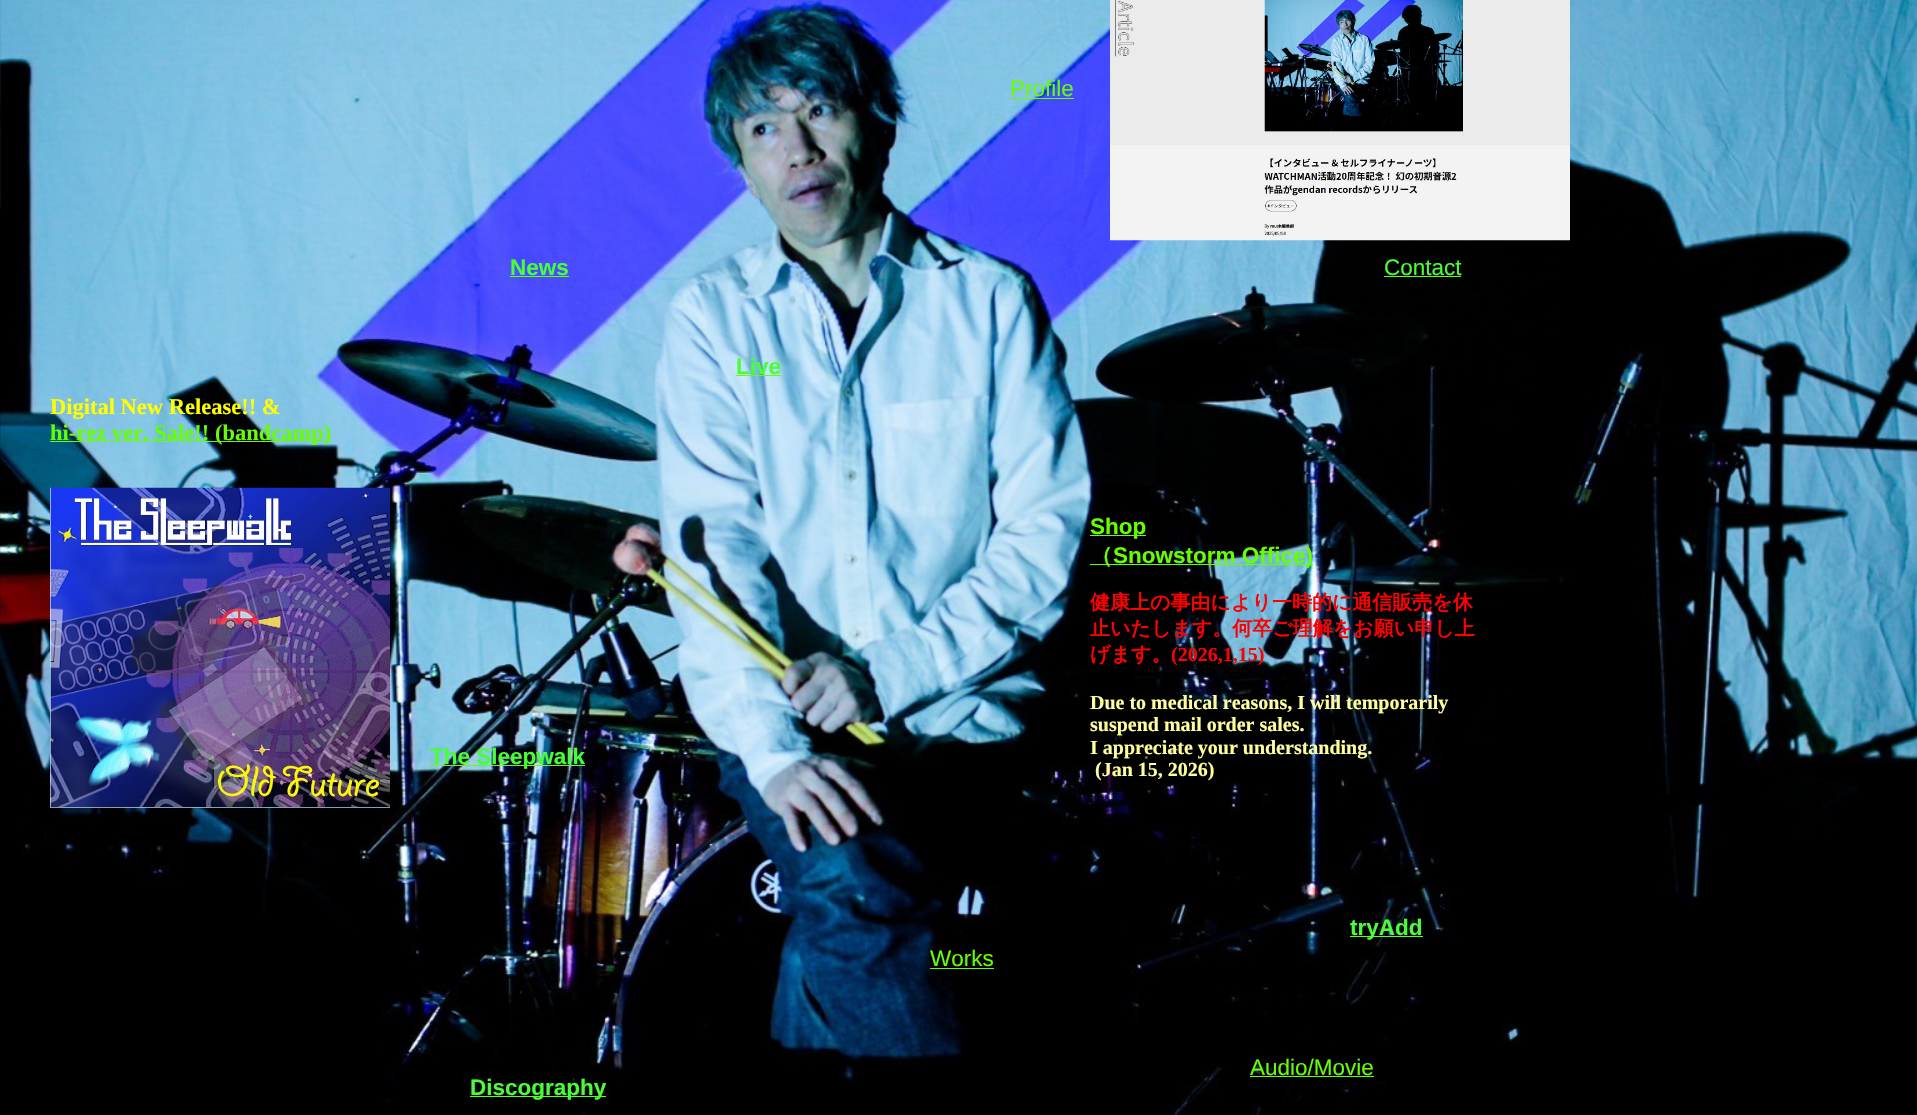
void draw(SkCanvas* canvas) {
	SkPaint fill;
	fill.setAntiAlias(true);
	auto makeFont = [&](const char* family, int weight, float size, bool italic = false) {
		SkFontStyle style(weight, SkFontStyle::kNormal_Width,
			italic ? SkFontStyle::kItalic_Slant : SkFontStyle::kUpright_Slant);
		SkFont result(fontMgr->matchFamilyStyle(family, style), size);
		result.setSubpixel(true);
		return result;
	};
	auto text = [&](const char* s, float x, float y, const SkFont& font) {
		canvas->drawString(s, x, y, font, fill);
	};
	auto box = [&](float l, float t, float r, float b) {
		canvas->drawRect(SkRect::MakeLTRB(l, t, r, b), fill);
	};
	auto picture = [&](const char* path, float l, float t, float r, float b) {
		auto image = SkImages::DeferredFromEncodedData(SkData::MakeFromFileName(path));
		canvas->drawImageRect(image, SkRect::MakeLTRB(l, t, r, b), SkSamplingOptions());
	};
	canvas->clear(0xFFFFFFFF);
	picture("image0.png", 0, 0, 1917, 1115);
	fill.setColor(0xFF66FF00);
	box(1010, 98, 1074, 99);
	picture("image1.png", 1110, 0, 1570, 241);
	box(510, 276, 569, 277);
	box(1384, 276, 1461, 277);
	box(736, 375, 781, 376);
	box(50, 441, 331, 442);
	picture("image2.png", 50, 487, 390, 808);
	box(430, 765, 585, 766);
	box(1090, 535, 1146, 536);
	box(1090, 564, 1313, 565);
	box(1350, 936, 1423, 937);
	box(930, 968, 994, 969);
	box(1250, 1076, 1374, 1077);
	box(470, 1096, 606, 1097);
	auto font1 = makeFont("Liberation Sans", 400, 22.5f);
	text("Profile", 1010, 96, font1);
	auto font2 = makeFont("Liberation Sans", 700, 22.5f);
	fill.setColor(0xFF48FF35);
	text("News", 510, 275, font2);
	text("Contact", 1384, 275, font1);
	text("Live", 736, 374, font2);
	auto font3 = makeFont("Liberation Serif", 700, 22.5f);
	fill.setColor(0xFFFFFF00);
	text("Digital New Release!! &", 50, 414, font3);
	fill.setColor(0xFF66FF00);
	text("hi-rez ver. Sale!! (bandcamp)", 50, 440, font3);
	fill.setColor(0xFF48FF35);
	text("The Sleepwalk", 430, 764, font2);
	fill.setColor(0xFF66FF00);
	text("Shop", 1090, 534, font2);
	auto font4 = makeFont("WenQuanYi Zen Hei", 700, 22.5f);
	text("（", 1090, 563, font4);
	text("Snowstorm Office)", 1113, 563, font2);
	auto font5 = makeFont("WenQuanYi Zen Hei", 700, 20);
	fill.setColor(0xFFFF0000);
	text("健康上の事由により一時的に通信販売を休", 1090, 609, font5);
	text("止いたします。何卒ご理解をお願い申し上", 1090, 635, font5);
	text("げます。", 1090, 661, font5);
	auto font6 = makeFont("Liberation Serif", 700, 20);
	text("(2026,1,15)", 1171, 661, font6);
	fill.setColor(0xFFFFFF9C);
	text("Due to medical reasons, I will temporarily", 1090, 709, font6);
	text("suspend mail order sales.", 1090, 731, font6);
	text("I appreciate your understanding.", 1090, 754, font6);
	text("(Jan 15, 2026)", 1095, 776, font6);
	fill.setColor(0xFF48FF35);
	text("tryAdd", 1350, 935, font2);
	fill.setColor(0xFF66FF00);
	text("Works", 930, 966, font1);
	text("Audio/Movie", 1250, 1075, font1);
	fill.setColor(0xFF48FF35);
	text("Discography", 470, 1095, font2);
}
